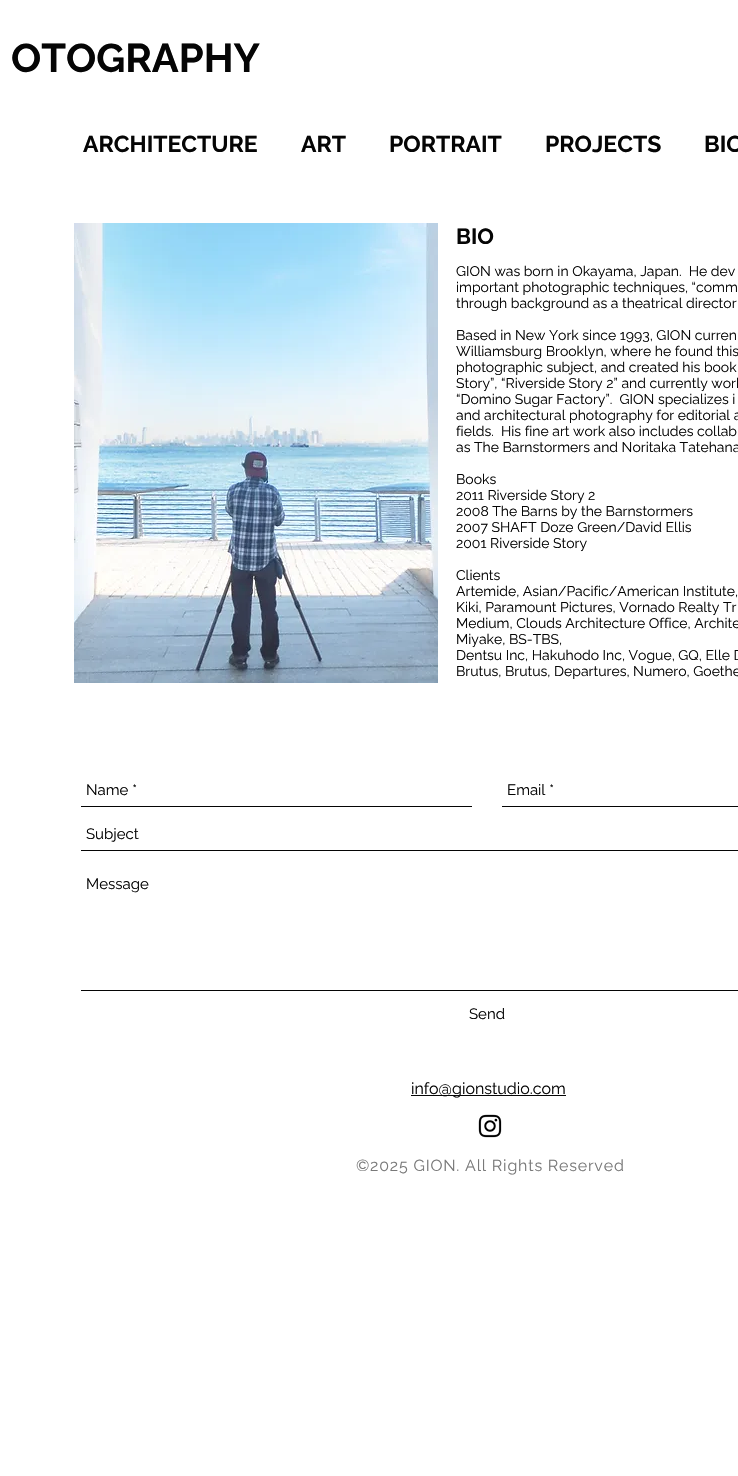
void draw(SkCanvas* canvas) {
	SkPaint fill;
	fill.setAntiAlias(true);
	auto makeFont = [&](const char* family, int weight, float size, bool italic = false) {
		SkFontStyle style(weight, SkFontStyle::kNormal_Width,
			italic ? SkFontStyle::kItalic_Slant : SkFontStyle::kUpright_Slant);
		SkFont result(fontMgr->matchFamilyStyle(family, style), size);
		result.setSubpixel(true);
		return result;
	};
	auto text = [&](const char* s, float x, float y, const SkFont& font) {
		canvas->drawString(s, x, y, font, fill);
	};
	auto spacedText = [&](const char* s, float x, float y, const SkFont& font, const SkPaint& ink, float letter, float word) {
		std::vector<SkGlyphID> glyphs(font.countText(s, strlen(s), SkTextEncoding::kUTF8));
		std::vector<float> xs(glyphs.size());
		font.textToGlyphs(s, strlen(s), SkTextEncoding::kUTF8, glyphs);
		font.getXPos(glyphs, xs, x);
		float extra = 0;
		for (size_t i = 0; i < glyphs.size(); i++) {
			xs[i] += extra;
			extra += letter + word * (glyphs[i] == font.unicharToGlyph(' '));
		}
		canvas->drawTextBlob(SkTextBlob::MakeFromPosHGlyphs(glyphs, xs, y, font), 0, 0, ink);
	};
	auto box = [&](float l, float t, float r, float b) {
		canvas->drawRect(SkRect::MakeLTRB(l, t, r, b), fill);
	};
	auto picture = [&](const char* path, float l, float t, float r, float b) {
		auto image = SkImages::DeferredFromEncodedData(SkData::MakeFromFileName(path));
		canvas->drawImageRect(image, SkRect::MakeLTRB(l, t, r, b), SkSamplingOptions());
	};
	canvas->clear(0xFFFFFFFF);
	picture("image0.png", 74, 223, 438, 683);
	fill.setColor(0xFF050505);
	box(81, 806, 472, 807);
	box(502, 806, 738, 807);
	box(81, 850, 738, 851);
	box(81, 990, 738, 991);
	box(411, 1095, 566, 1096);
	picture("image1.png", 478, 1114, 502, 1138);
	auto font1 = makeFont("Raleway", 700, 40);
	text("OTOGRAPHY", 11, 72, font1);
	auto font2 = makeFont("Raleway", 700, 23);
	text("ARCHITECTURE", 83, 152, font2);
	text("ART", 301, 152, font2);
	text("PORTRAIT", 389, 152, font2);
	text("PROJECTS", 545, 152, font2);
	text("BIO", 704, 152, font2);
	auto font3 = makeFont("Raleway", 700, 22);
	text("BIO", 456, 244, font3);
	auto font4 = makeFont("Raleway", 400, 14);
	text("GION was born in Okayama, Japan.  He dev", 456, 276, font4);
	text("important photographic techniques, “comm", 456, 292, font4);
	text("through background as a theatrical director", 456, 308, font4);
	text("Based in New York since 1993, GION curren", 456, 340, font4);
	text("Williamsburg Brooklyn, where he found this", 456, 356, font4);
	text("photographic subject, and created his book", 456, 372, font4);
	text("Story”, “Riverside Story 2” and currently work", 456, 388, font4);
	text("“Domino Sugar Factory”.  GION specializes i", 456, 404, font4);
	text("and architectural photography for editorial a", 456, 420, font4);
	text("fields.  His fine art work also includes collab", 456, 436, font4);
	text("as The Barnstormers and Noritaka Tatehana", 456, 452, font4);
	text("Books", 456, 484, font4);
	text("2011 Riverside Story 2", 456, 500, font4);
	text("2008 The Barns by the Barnstormers", 456, 516, font4);
	text("2007 SHAFT Doze Green/David Ellis", 456, 532, font4);
	text("2001 Riverside Story", 456, 548, font4);
	text("Clients", 456, 580, font4);
	text("Artemide, Asian/Pacific/American Institute,", 456, 596, font4);
	text("Kiki, Paramount Pictures, Vornado Realty Tr", 456, 612, font4);
	text("Medium, Clouds Architecture Office, Archite", 456, 628, font4);
	text("Miyake, BS-TBS,", 456, 644, font4);
	text("Dentsu Inc, Hakuhodo Inc, Vogue, GQ, Elle D", 456, 660, font4);
	text("Brutus, Brutus, Departures, Numero, Goethe", 456, 676, font4);
	auto font5 = makeFont("Raleway", 400, 15);
	text("Name *", 86, 795, font5);
	text("Email *", 507, 795, font5);
	text("Subject", 86, 839, font5);
	text("Message", 86, 889, font5);
	text("Send", 469, 1019, font5);
	auto font6 = makeFont("Raleway", 400, 16);
	text("info@gionstudio.com", 411, 1094, font6);
	fill.setColor(0xFF797979);
	spacedText("©2025 GION. All Rights Reserved", 356, 1171, font6, fill, 0.8f, 0);
}
